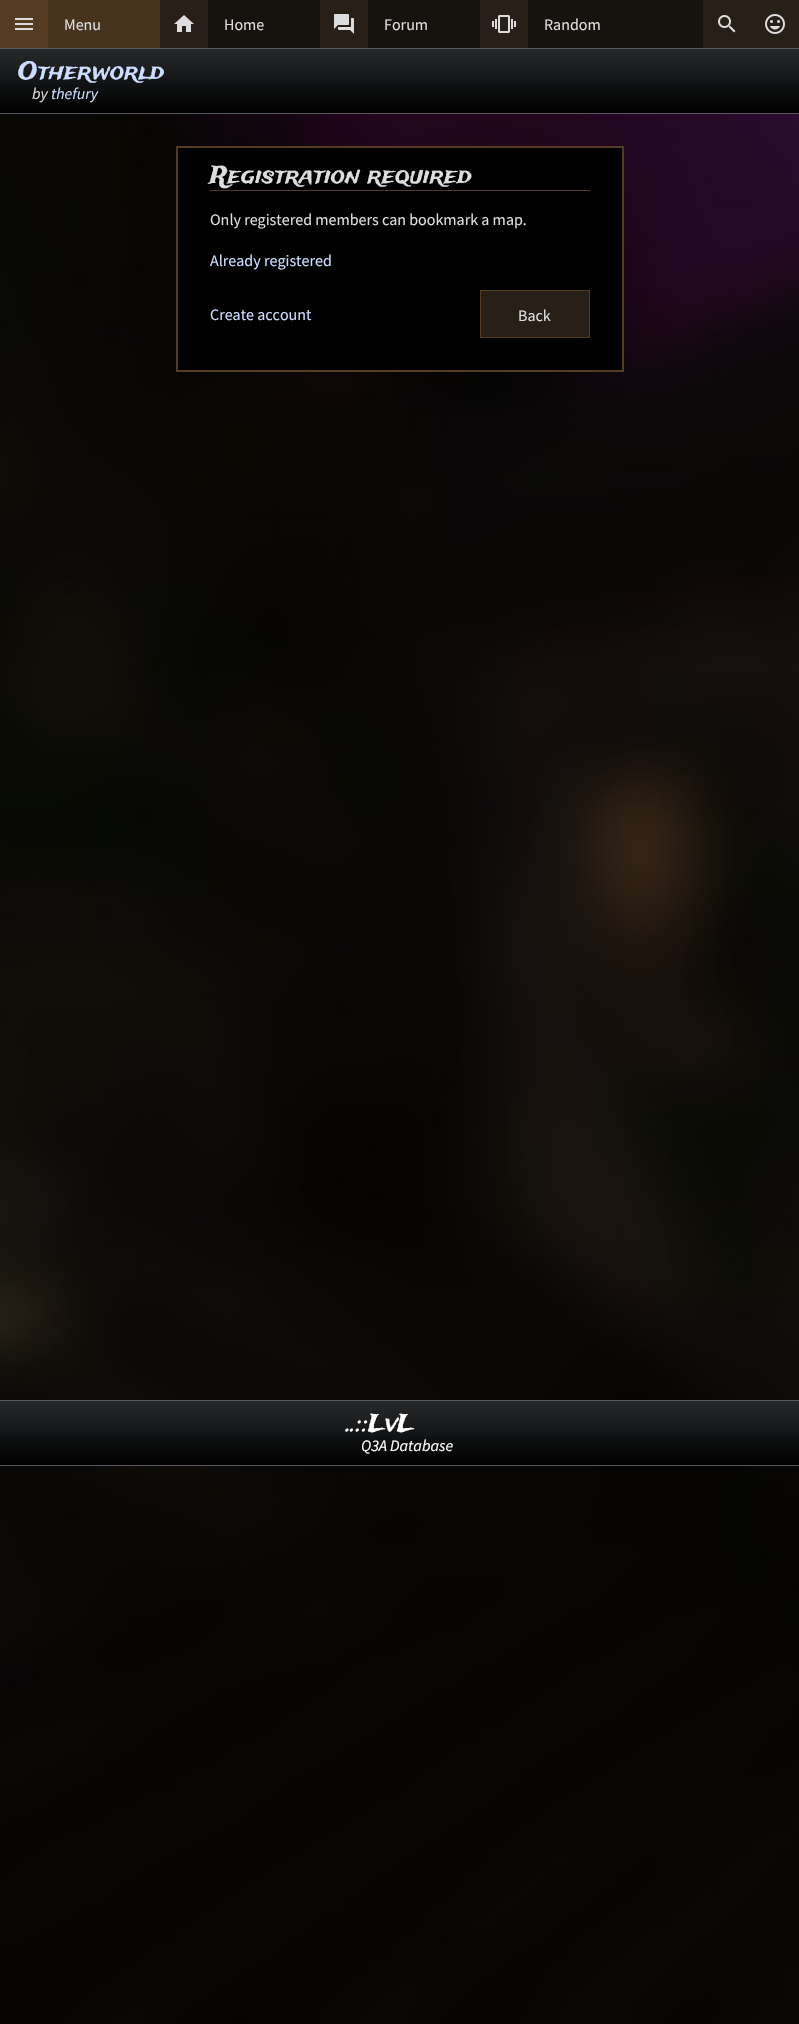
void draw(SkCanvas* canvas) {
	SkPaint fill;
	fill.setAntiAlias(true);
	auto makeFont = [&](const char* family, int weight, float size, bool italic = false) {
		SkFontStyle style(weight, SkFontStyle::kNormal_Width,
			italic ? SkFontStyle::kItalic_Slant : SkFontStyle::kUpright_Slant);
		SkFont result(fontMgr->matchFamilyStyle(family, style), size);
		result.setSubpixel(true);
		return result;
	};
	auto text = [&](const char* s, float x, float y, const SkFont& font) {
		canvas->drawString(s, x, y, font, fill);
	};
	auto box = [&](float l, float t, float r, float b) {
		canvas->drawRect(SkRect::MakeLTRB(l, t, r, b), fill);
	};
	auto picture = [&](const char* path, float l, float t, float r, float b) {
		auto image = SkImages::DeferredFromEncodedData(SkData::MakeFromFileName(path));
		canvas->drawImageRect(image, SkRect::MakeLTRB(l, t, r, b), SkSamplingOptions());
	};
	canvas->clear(0xFFFFFFFF);
	fill.setColor(0xFF16130F);
	box(208, 0, 703, 48);
	fill.setColor(0xFF543C22);
	box(0, 0, 48, 48);
	picture("image0.png", 15, 18, 33, 30);
	fill.setColor(0xFF47341F);
	box(48, 0, 160, 48);
	fill.setColor(0xFF282016);
	box(160, 0, 208, 48);
	picture("image1.png", 174, 15, 194, 32);
	box(320, 0, 368, 48);
	picture("image2.png", 334, 14, 354, 34);
	box(480, 0, 528, 48);
	picture("image3.png", 492, 15, 516, 33);
	box(703, 0, 799, 48);
	picture("image4.png", 718, 15, 736, 33);
	picture("image5.png", 765, 14, 785, 34);
	picture("image6.png", 0, 49, 799, 113);
	fill.setColor(0xFF56585D);
	box(0, 48, 799, 49);
	box(0, 113, 799, 114);
	picture("image7.png", 0, 114, 799, 2024);
	fill.setColor(0xFF000000);
	canvas->drawRect(SkRect::MakeLTRB(177, 147, 623, 371), fill);
	fill.setStyle(SkPaint::kStroke_Style);
	fill.setStrokeWidth(2);
	fill.setColor(0xFF543C22);
	canvas->drawRect(SkRect::MakeLTRB(177, 147, 623, 371), fill);
	fill.setStyle(SkPaint::kFill_Style);
	box(210, 190, 590, 191);
	fill.setColor(0xFF282016);
	canvas->drawRect(SkRect::MakeLTRB(480.5f, 290.5f, 589.5f, 337.5f), fill);
	fill.setStyle(SkPaint::kStroke_Style);
	fill.setStrokeWidth(1);
	fill.setColor(0xFF543C22);
	canvas->drawRect(SkRect::MakeLTRB(480.5f, 290.5f, 589.5f, 337.5f), fill);
	picture("image6.png", 0, 1401, 799, 1465);
	fill.setStyle(SkPaint::kFill_Style);
	fill.setColor(0xFF56585D);
	box(0, 1400, 799, 1401);
	box(0, 1465, 799, 1466);
	auto font1 = makeFont("Source Sans Pro", 400, 16);
	fill.setColor(0xFFDDDDDD);
	text("Menu", 64, 30, font1);
	text("Home", 224, 30, font1);
	text("Forum", 384, 30, font1);
	text("Random", 544, 30, font1);
	auto font2 = makeFont("Trade Winds", 400, 24);
	fill.setColor(0xFFCCDDFF);
	text("Otherworld", 18, 79, font2);
	auto font3 = makeFont("Source Sans Pro", 400, 16, true);
	fill.setColor(0xFFDDDDDD);
	text("by", 32, 99, font3);
	fill.setColor(0xFFCCDDFF);
	text("thefury", 51, 99, font3);
	fill.setColor(0xFFDDDDDD);
	text("Registration required", 210, 183, font2);
	text("Only registered members can bookmark a map.", 210, 225, font1);
	fill.setColor(0xFFCCDDFF);
	text("Already registered", 210, 266, font1);
	text("Create account", 210, 320, font1);
	fill.setColor(0xFFDDDDDD);
	text("Back", 518, 321, font1);
	fill.setColor(0xFFFFFFFF);
	text("..::LvL", 347, 1431, font2);
	text("Q3A Database", 361, 1451, font3);
}
